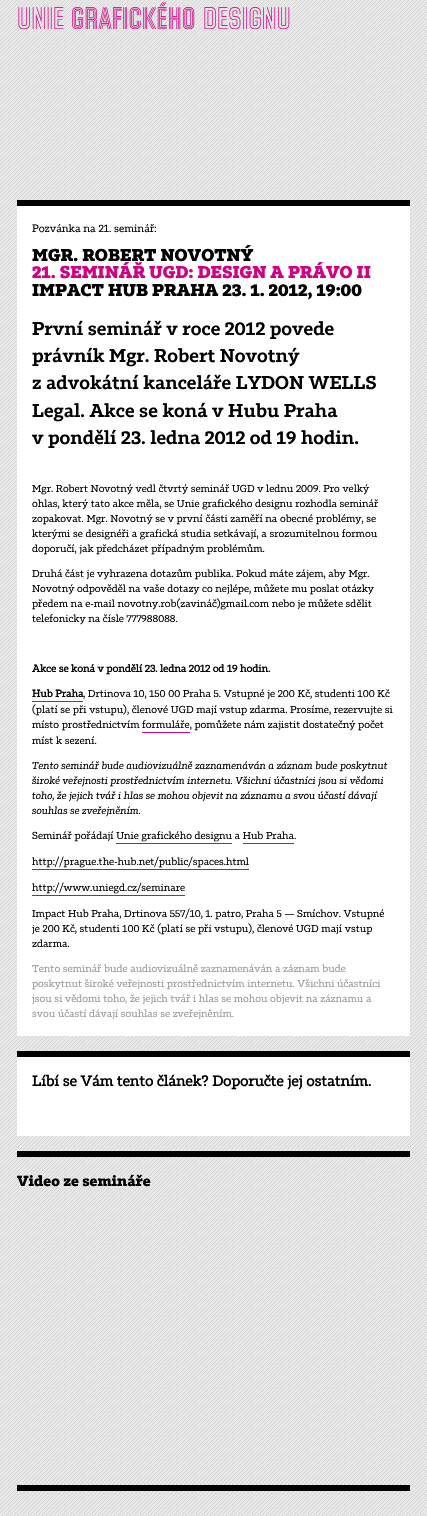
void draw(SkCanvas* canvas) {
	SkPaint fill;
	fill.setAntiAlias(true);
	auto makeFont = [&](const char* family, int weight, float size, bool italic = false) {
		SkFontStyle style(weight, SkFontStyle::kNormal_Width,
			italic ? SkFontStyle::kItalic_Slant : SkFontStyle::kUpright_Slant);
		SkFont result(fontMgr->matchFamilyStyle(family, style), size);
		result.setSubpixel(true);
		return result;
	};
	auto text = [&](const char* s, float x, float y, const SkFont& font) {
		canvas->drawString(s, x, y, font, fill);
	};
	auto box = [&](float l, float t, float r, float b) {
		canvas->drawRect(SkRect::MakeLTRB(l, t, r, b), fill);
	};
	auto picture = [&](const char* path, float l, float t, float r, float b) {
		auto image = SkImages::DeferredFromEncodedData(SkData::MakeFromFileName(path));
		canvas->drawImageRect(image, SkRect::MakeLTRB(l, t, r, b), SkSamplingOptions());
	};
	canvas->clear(0xFFFFFFFF);
	picture("image0.png", 0, 0, 427, 1516);
	fill.setColor(0xFFFFFFFF);
	box(17, 206, 410, 1036);
	fill.setColor(0xFF000000);
	box(17, 200, 410, 206);
	fill.setColor(0xFFD20082);
	box(32, 701, 83, 702);
	box(142, 732, 190, 733);
	box(116, 843, 232, 844);
	box(243, 843, 294, 844);
	box(32, 869, 249, 870);
	box(32, 895, 185, 896);
	fill.setColor(0xFFFFFFFF);
	box(17, 1057, 410, 1136);
	fill.setColor(0xFF000000);
	box(17, 1051, 410, 1057);
	box(17, 1151, 410, 1157);
	box(17, 1485, 410, 1491);
	auto font1 = makeFont("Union", 400, 31);
	fill.setColor(0xFFD20082);
	text("UNIE", 17, 29, font1);
	auto font2 = makeFont("Union", 700, 31);
	text("GRAFICKÉHO", 71, 29, font2);
	text("DESIGNU", 203, 29, font1);
	auto font3 = makeFont("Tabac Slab", 400, 10.4f);
	fill.setColor(0xFF000000);
	text("Pozvánka na 21. seminář:", 32, 232, font3);
	auto font4 = makeFont("Tabac Slab", 700, 16.9f);
	text("MGR. ROBERT NOVOTNÝ", 32, 261, font4);
	fill.setColor(0xFFD20082);
	text("21. SEMINÁŘ UGD: DESIGN A PRÁVO II", 32, 278, font4);
	fill.setColor(0xFF000000);
	text("IMPACT HUB PRAHA 23. 1. 2012, 19:00", 32, 296, font4);
	auto font5 = makeFont("Tabac Slab", 300, 18.25f);
	text("První seminář v roce 2012 povede", 32, 335, font5);
	text("právník Mgr. Robert Novotný", 32, 362, font5);
	text("z advokátní kanceláře LYDON WELLS", 32, 389, font5);
	text("Legal. Akce se koná v Hubu Praha", 32, 417, font5);
	text("v pondělí 23. ledna 2012 od 19 hodin.", 32, 444, font5);
	auto font6 = makeFont("Tabac Slab", 400, 10);
	text("Mgr. Robert Novotný vedl čtvrtý seminář UGD v lednu 2009. Pro velký", 32, 492, font6);
	text("ohlas, který tato akce měla, se Unie grafického designu rozhodla seminář", 32, 507, font6);
	text("zopakovat. Mgr. Novotný se v první části zaměří na obecné problémy, se", 32, 522, font6);
	text("kterými se designéři a grafická studia setkávají, a srozumitelnou formou", 32, 537, font6);
	text("doporučí, jak předcházet případným problémům.", 32, 552, font6);
	text("Druhá část je vyhrazena dotazům publika. Pokud máte zájem, aby Mgr.", 32, 577, font6);
	text("Novotný odpověděl na vaše dotazy co nejlépe, můžete mu poslat otázky", 32, 592, font6);
	text("předem na e-mail novotny.rob(zavináč)gmail.com nebo je můžete sdělit", 32, 607, font6);
	text("telefonicky na čísle 777988088.", 32, 622, font6);
	auto font7 = makeFont("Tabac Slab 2", 700, 10);
	text("Akce se koná v pondělí 23. ledna 2012 od 19 hodin.", 32, 672, font7);
	text("Hub Praha", 32, 697, font7);
	text(", Drtinova 10, 150 00 Praha 5. Vstupné je 200 Kč, studenti 100 Kč", 83, 697, font6);
	text("(platí se při vstupu), členové UGD mají vstup zdarma. Prosíme, rezervujte si", 32, 713, font6);
	text("místo prostřednictvím formuláře, pomůžete nám zajistit dostatečný počet", 32, 728, font6);
	text("míst k sezení.", 32, 744, font6);
	auto font8 = makeFont("Tabac Slab", 400, 10, true);
	text("Tento seminář bude audiovizuálně zaznamenáván a záznam bude poskytnut", 32, 769, font8);
	text("široké veřejnosti prostřednictvím internetu. Všichni účastníci jsou si vědomi", 32, 784, font8);
	text("toho, že jejich tvář i hlas se mohou objevit na záznamu a svou účastí dávají", 32, 799, font8);
	text("souhlas se zveřejněním.", 32, 814, font8);
	text("Seminář pořádají Unie grafického designu a Hub Praha.", 32, 839, font6);
	text("http://prague.the-hub.net/public/spaces.html", 32, 865, font6);
	text("http://www.uniegd.cz/seminare", 32, 891, font6);
	text("Impact Hub Praha, Drtinova 557/10, 1. patro, Praha 5 — Smíchov. Vstupné", 32, 917, font6);
	text("je 200 Kč, studenti 100 Kč (platí se při vstupu), členové UGD mají vstup", 32, 932, font6);
	text("zdarma.", 32, 947, font6);
	fill.setColor(0xFF999999);
	text("Tento seminář bude audiovizuálně zaznamenáván a záznam bude", 32, 972, font6);
	text("poskytnut široké veřejnosti prostřednictvím internetu. Všichni účastníci", 32, 987, font6);
	text("jsou si vědomi toho, že jejich tvář i hlas se mohou objevit na záznamu a", 32, 1002, font6);
	text("svou účastí dávají souhlas se zveřejněním.", 32, 1017, font6);
	auto font9 = makeFont("Tabac Slab 2", 700, 14.3f);
	fill.setColor(0xFF000000);
	text("Líbí se Vám tento článek? Doporučte jej ostatním.", 32, 1086, font9);
	auto font10 = makeFont("Tabac Slab", 700, 14.3f);
	text("Video ze semináře", 17, 1186, font10);
}
